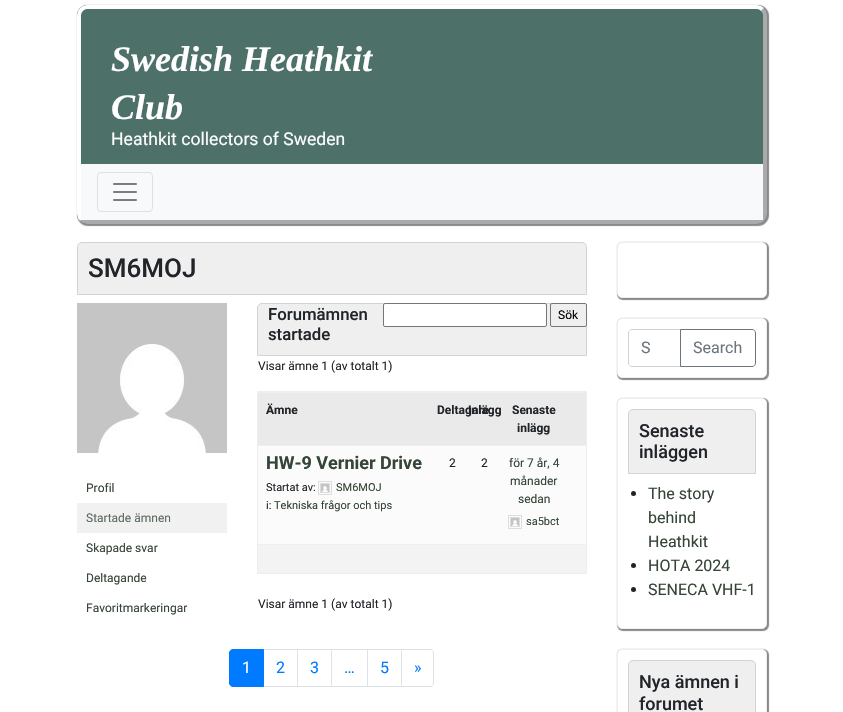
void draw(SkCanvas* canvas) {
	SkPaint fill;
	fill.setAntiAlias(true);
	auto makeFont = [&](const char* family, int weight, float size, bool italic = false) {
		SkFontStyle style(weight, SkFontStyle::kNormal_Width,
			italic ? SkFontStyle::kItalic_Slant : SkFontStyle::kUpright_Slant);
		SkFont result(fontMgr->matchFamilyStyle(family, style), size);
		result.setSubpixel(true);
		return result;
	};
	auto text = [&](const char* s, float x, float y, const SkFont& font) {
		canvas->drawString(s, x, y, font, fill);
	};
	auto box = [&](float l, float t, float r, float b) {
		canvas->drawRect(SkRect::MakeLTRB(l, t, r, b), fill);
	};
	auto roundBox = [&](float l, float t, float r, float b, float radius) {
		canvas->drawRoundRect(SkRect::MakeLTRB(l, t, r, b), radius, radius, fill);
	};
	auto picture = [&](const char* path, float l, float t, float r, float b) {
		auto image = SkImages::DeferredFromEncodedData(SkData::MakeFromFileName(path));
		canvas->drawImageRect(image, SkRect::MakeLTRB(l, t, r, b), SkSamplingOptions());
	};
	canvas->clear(0xFFFFFFFF);
	fill.setColor(0xFF888888);
	fill.setMaskFilter(SkMaskFilter::MakeBlur(kNormal_SkBlurStyle, 0.5f));
	canvas->drawRoundRect(SkRect::MakeLTRB(77, 5, 769, 226), 11, 11, fill);
	fill.setMaskFilter(nullptr);
	fill.setColor(0xFF4D7169);
	roundBox(77, 5, 767, 224, 10);
	fill.setStyle(SkPaint::kStroke_Style);
	fill.setStrokeWidth(4);
	fill.setColor(0xFFAAAAAA);
	canvas->drawPath(SkPathBuilder().moveTo(762.5f, 9.5f).cubicTo(764, 11, 765, 13, 765, 15).lineTo(765, 214).cubicTo(765, 216, 764, 218, 762.5f, 219.5f).cubicTo(761, 221, 759, 222, 757, 222).lineTo(87, 222).cubicTo(85, 222, 83, 221, 81.5f, 219.5f).detach(), fill);
	fill.setColor(0xFFFFFFFF);
	canvas->drawPath(SkPathBuilder().moveTo(81.5f, 219.5f).cubicTo(80, 218, 79, 216, 79, 214).lineTo(79, 15).cubicTo(79, 13, 80, 11, 81.5f, 9.5f).cubicTo(83, 8, 85, 7, 87, 7).lineTo(757, 7).cubicTo(759, 7, 761, 8, 762.5f, 9.5f).detach(), fill);
	fill.setStyle(SkPaint::kFill_Style);
	fill.setColor(0xFFF8F9FA);
	box(81, 164, 763, 220);
	fill.setStyle(SkPaint::kStroke_Style);
	fill.setStrokeWidth(1);
	fill.setColor(0xFFDFE0E1);
	canvas->drawRoundRect(SkRect::MakeLTRB(97.5f, 172.5f, 152.5f, 211.5f), 3.5f, 3.5f, fill);
	picture("image0.png", 113, 183, 137, 201);
	fill.setStyle(SkPaint::kFill_Style);
	fill.setColor(0xFFEFEFEF);
	canvas->drawPath(SkPathBuilder().moveTo(82, 242.5f).lineTo(582, 242.5f).cubicTo(584.5f, 242.5f, 586.5f, 244.5f, 586.5f, 247).lineTo(586.5f, 294.5f).lineTo(77.5f, 294.5f).lineTo(77.5f, 247).cubicTo(77.5f, 244.5f, 79.5f, 242.5f, 82, 242.5f).close().detach(), fill);
	fill.setStyle(SkPaint::kStroke_Style);
	fill.setColor(0xFFD3D3D3);
	canvas->drawPath(SkPathBuilder().moveTo(82, 242.5f).lineTo(582, 242.5f).cubicTo(584.5f, 242.5f, 586.5f, 244.5f, 586.5f, 247).lineTo(586.5f, 294.5f).lineTo(77.5f, 294.5f).lineTo(77.5f, 247).cubicTo(77.5f, 244.5f, 79.5f, 242.5f, 82, 242.5f).close().detach(), fill);
	picture("image1.png", 77, 303, 227, 453);
	fill.setStyle(SkPaint::kFill_Style);
	fill.setColor(0xFFF1F1F1);
	box(77, 503, 227, 533);
	fill.setColor(0xFFEFEFEF);
	canvas->drawPath(SkPathBuilder().moveTo(262, 303.5f).lineTo(582, 303.5f).cubicTo(584.5f, 303.5f, 586.5f, 305.5f, 586.5f, 308).lineTo(586.5f, 355.5f).lineTo(257.5f, 355.5f).lineTo(257.5f, 308).cubicTo(257.5f, 305.5f, 259.5f, 303.5f, 262, 303.5f).close().detach(), fill);
	fill.setStyle(SkPaint::kStroke_Style);
	fill.setColor(0xFFD3D3D3);
	canvas->drawPath(SkPathBuilder().moveTo(262, 303.5f).lineTo(582, 303.5f).cubicTo(584.5f, 303.5f, 586.5f, 305.5f, 586.5f, 308).lineTo(586.5f, 355.5f).lineTo(257.5f, 355.5f).lineTo(257.5f, 308).cubicTo(257.5f, 305.5f, 259.5f, 303.5f, 262, 303.5f).close().detach(), fill);
	fill.setStyle(SkPaint::kFill_Style);
	fill.setColor(0xFFFFFFFF);
	canvas->drawRoundRect(SkRect::MakeLTRB(383.5f, 303.5f, 546.5f, 326.5f), 1.5f, 1.5f, fill);
	fill.setStyle(SkPaint::kStroke_Style);
	fill.setColor(0xFF767676);
	canvas->drawRoundRect(SkRect::MakeLTRB(383.5f, 303.5f, 546.5f, 326.5f), 1.5f, 1.5f, fill);
	fill.setStyle(SkPaint::kFill_Style);
	fill.setColor(0xFFEFEFEF);
	canvas->drawRoundRect(SkRect::MakeLTRB(550.5f, 303.5f, 586.5f, 326.5f), 1.5f, 1.5f, fill);
	fill.setStyle(SkPaint::kStroke_Style);
	fill.setColor(0xFF767676);
	canvas->drawRoundRect(SkRect::MakeLTRB(550.5f, 303.5f, 586.5f, 326.5f), 1.5f, 1.5f, fill);
	fill.setColor(0xFFEEEEEE);
	canvas->drawRect(SkRect::MakeLTRB(257.5f, 391.5f, 586.5f, 573.5f), fill);
	fill.setStyle(SkPaint::kFill_Style);
	fill.setColor(0xFFEAEAEA);
	box(258, 393, 586, 445);
	fill.setColor(0xFFEEEEEE);
	box(258, 392, 586, 393);
	fill.setColor(0xFFFBFBFB);
	box(258, 446, 586, 544);
	fill.setColor(0xFFEEEEEE);
	box(258, 445, 586, 446);
	fill.setStyle(SkPaint::kStroke_Style);
	fill.setColor(0xFFDDDDDD);
	canvas->drawRect(SkRect::MakeLTRB(318.5f, 481.5f, 331.5f, 494.5f), fill);
	canvas->drawRect(SkRect::MakeLTRB(320.5f, 483.5f, 329.5f, 492.5f), fill);
	picture("image2.png", 321, 484, 329, 492);
	canvas->drawRect(SkRect::MakeLTRB(508.5f, 515.5f, 521.5f, 528.5f), fill);
	canvas->drawRect(SkRect::MakeLTRB(510.5f, 517.5f, 519.5f, 526.5f), fill);
	picture("image2.png", 511, 518, 519, 526);
	fill.setStyle(SkPaint::kFill_Style);
	fill.setColor(0xFFF3F3F3);
	box(258, 545, 586, 573);
	fill.setColor(0xFFEEEEEE);
	box(258, 544, 586, 545);
	fill.setStyle(SkPaint::kStroke_Style);
	fill.setColor(0xFFDEE2E6);
	canvas->drawRect(SkRect::MakeLTRB(263.5f, 649.5f, 297.5f, 686.5f), fill);
	fill.setStyle(SkPaint::kFill_Style);
	fill.setColor(0xFF007BFF);
	canvas->drawPath(SkPathBuilder().moveTo(233, 649.5f).lineTo(263.5f, 649.5f).lineTo(263.5f, 686.5f).lineTo(233, 686.5f).cubicTo(231, 686.5f, 229.5f, 685, 229.5f, 683).lineTo(229.5f, 653).cubicTo(229.5f, 651, 231, 649.5f, 233, 649.5f).close().detach(), fill);
	fill.setStyle(SkPaint::kStroke_Style);
	canvas->drawPath(SkPathBuilder().moveTo(233, 649.5f).lineTo(263.5f, 649.5f).lineTo(263.5f, 686.5f).lineTo(233, 686.5f).cubicTo(231, 686.5f, 229.5f, 685, 229.5f, 683).lineTo(229.5f, 653).cubicTo(229.5f, 651, 231, 649.5f, 233, 649.5f).close().detach(), fill);
	fill.setColor(0xFFDEE2E6);
	canvas->drawRect(SkRect::MakeLTRB(297.5f, 649.5f, 331.5f, 686.5f), fill);
	canvas->drawRect(SkRect::MakeLTRB(331.5f, 649.5f, 367.5f, 686.5f), fill);
	canvas->drawRect(SkRect::MakeLTRB(367.5f, 649.5f, 401.5f, 686.5f), fill);
	fill.setStyle(SkPaint::kFill_Style);
	fill.setColor(0xFFFFFFFF);
	canvas->drawPath(SkPathBuilder().moveTo(401.5f, 649.5f).lineTo(430, 649.5f).cubicTo(432, 649.5f, 433.5f, 651, 433.5f, 653).lineTo(433.5f, 683).cubicTo(433.5f, 685, 432, 686.5f, 430, 686.5f).lineTo(401.5f, 686.5f).close().detach(), fill);
	fill.setStyle(SkPaint::kStroke_Style);
	fill.setColor(0xFFDEE2E6);
	canvas->drawPath(SkPathBuilder().moveTo(401.5f, 649.5f).lineTo(430, 649.5f).cubicTo(432, 649.5f, 433.5f, 651, 433.5f, 653).lineTo(433.5f, 683).cubicTo(433.5f, 685, 432, 686.5f, 430, 686.5f).lineTo(401.5f, 686.5f).close().detach(), fill);
	fill.setStyle(SkPaint::kFill_Style);
	fill.setColor(0xFF888888);
	fill.setMaskFilter(SkMaskFilter::MakeBlur(kNormal_SkBlurStyle, 0.5f));
	canvas->drawRoundRect(SkRect::MakeLTRB(617, 242, 769, 300), 6, 6, fill);
	fill.setMaskFilter(nullptr);
	fill.setColor(0xFFFFFFFF);
	canvas->drawRoundRect(SkRect::MakeLTRB(617.5f, 242.5f, 766.5f, 297.5f), 4.5f, 4.5f, fill);
	fill.setStyle(SkPaint::kStroke_Style);
	fill.setColor(0xFFEEEEEE);
	canvas->drawRoundRect(SkRect::MakeLTRB(617.5f, 242.5f, 766.5f, 297.5f), 4.5f, 4.5f, fill);
	fill.setStyle(SkPaint::kFill_Style);
	fill.setColor(0xFF888888);
	fill.setMaskFilter(SkMaskFilter::MakeBlur(kNormal_SkBlurStyle, 0.5f));
	canvas->drawRoundRect(SkRect::MakeLTRB(617, 318, 769, 380), 6, 6, fill);
	fill.setMaskFilter(nullptr);
	fill.setColor(0xFFFFFFFF);
	canvas->drawRoundRect(SkRect::MakeLTRB(617.5f, 318.5f, 766.5f, 377.5f), 4.5f, 4.5f, fill);
	fill.setStyle(SkPaint::kStroke_Style);
	fill.setColor(0xFFEEEEEE);
	canvas->drawRoundRect(SkRect::MakeLTRB(617.5f, 318.5f, 766.5f, 377.5f), 4.5f, 4.5f, fill);
	fill.setColor(0xFFCED4DA);
	canvas->drawPath(SkPathBuilder().moveTo(632, 329.5f).lineTo(680.5f, 329.5f).lineTo(680.5f, 366.5f).lineTo(632, 366.5f).cubicTo(630, 366.5f, 628.5f, 365, 628.5f, 363).lineTo(628.5f, 333).cubicTo(628.5f, 331, 630, 329.5f, 632, 329.5f).close().detach(), fill);
	fill.setColor(0xFF6C757D);
	canvas->drawPath(SkPathBuilder().moveTo(680.5f, 329.5f).lineTo(752, 329.5f).cubicTo(754, 329.5f, 755.5f, 331, 755.5f, 333).lineTo(755.5f, 363).cubicTo(755.5f, 365, 754, 366.5f, 752, 366.5f).lineTo(680.5f, 366.5f).close().detach(), fill);
	fill.setStyle(SkPaint::kFill_Style);
	fill.setColor(0xFF888888);
	fill.setMaskFilter(SkMaskFilter::MakeBlur(kNormal_SkBlurStyle, 0.5f));
	canvas->drawRoundRect(SkRect::MakeLTRB(617, 398, 769, 631), 6, 6, fill);
	fill.setMaskFilter(nullptr);
	fill.setColor(0xFFFFFFFF);
	canvas->drawRoundRect(SkRect::MakeLTRB(617.5f, 398.5f, 766.5f, 628.5f), 4.5f, 4.5f, fill);
	fill.setStyle(SkPaint::kStroke_Style);
	fill.setColor(0xFFEEEEEE);
	canvas->drawRoundRect(SkRect::MakeLTRB(617.5f, 398.5f, 766.5f, 628.5f), 4.5f, 4.5f, fill);
	fill.setStyle(SkPaint::kFill_Style);
	fill.setColor(0xFFEFEFEF);
	canvas->drawPath(SkPathBuilder().moveTo(633, 409.5f).lineTo(751, 409.5f).cubicTo(753.5f, 409.5f, 755.5f, 411.5f, 755.5f, 414).lineTo(755.5f, 473.5f).lineTo(628.5f, 473.5f).lineTo(628.5f, 414).cubicTo(628.5f, 411.5f, 630.5f, 409.5f, 633, 409.5f).close().detach(), fill);
	fill.setStyle(SkPaint::kStroke_Style);
	fill.setColor(0xFFD3D3D3);
	canvas->drawPath(SkPathBuilder().moveTo(633, 409.5f).lineTo(751, 409.5f).cubicTo(753.5f, 409.5f, 755.5f, 411.5f, 755.5f, 414).lineTo(755.5f, 473.5f).lineTo(628.5f, 473.5f).lineTo(628.5f, 414).cubicTo(628.5f, 411.5f, 630.5f, 409.5f, 633, 409.5f).close().detach(), fill);
	fill.setStyle(SkPaint::kFill_Style);
	fill.setColor(0xFF212529);
	canvas->drawCircle(633.5f, 493.5f, 2.5f, fill);
	canvas->drawCircle(633.5f, 565.5f, 2.5f, fill);
	canvas->drawCircle(633.5f, 589.5f, 2.5f, fill);
	fill.setColor(0xFF888888);
	fill.setMaskFilter(SkMaskFilter::MakeBlur(kNormal_SkBlurStyle, 0.5f));
	canvas->drawRoundRect(SkRect::MakeLTRB(617, 649, 769, 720), 6, 6, fill);
	fill.setMaskFilter(nullptr);
	fill.setColor(0xFFFFFFFF);
	canvas->drawRoundRect(SkRect::MakeLTRB(617.5f, 649.5f, 766.5f, 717.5f), 4.5f, 4.5f, fill);
	fill.setStyle(SkPaint::kStroke_Style);
	fill.setColor(0xFFEEEEEE);
	canvas->drawRoundRect(SkRect::MakeLTRB(617.5f, 649.5f, 766.5f, 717.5f), 4.5f, 4.5f, fill);
	fill.setStyle(SkPaint::kFill_Style);
	fill.setColor(0xFFEFEFEF);
	canvas->drawPath(SkPathBuilder().moveTo(633, 660.5f).lineTo(751, 660.5f).cubicTo(753.5f, 660.5f, 755.5f, 662.5f, 755.5f, 665).lineTo(755.5f, 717.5f).lineTo(628.5f, 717.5f).lineTo(628.5f, 665).cubicTo(628.5f, 662.5f, 630.5f, 660.5f, 633, 660.5f).close().detach(), fill);
	fill.setStyle(SkPaint::kStroke_Style);
	fill.setColor(0xFFD3D3D3);
	canvas->drawPath(SkPathBuilder().moveTo(633, 660.5f).lineTo(751, 660.5f).cubicTo(753.5f, 660.5f, 755.5f, 662.5f, 755.5f, 665).lineTo(755.5f, 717.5f).lineTo(628.5f, 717.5f).lineTo(628.5f, 665).cubicTo(628.5f, 662.5f, 630.5f, 660.5f, 633, 660.5f).close().detach(), fill);
	auto font1 = makeFont("Liberation Serif", 700, 36, true);
	fill.setStyle(SkPaint::kFill_Style);
	fill.setColor(0xFFFFFFFF);
	text("Swedish Heathkit", 111, 71, font1);
	text("Club", 111, 119, font1);
	auto font2 = makeFont("Roboto", 400, 17.6f);
	text("Heathkit collectors of Sweden", 111, 145, font2);
	auto font3 = makeFont("Roboto", 500, 26);
	fill.setColor(0xFF212529);
	text("SM6MOJ", 88, 277, font3);
	auto font4 = makeFont("Roboto", 400, 12);
	fill.setColor(0xFF354537);
	text("Profil", 86, 492, font4);
	fill.setColor(0xFF5D6A5F);
	text("Startade ämnen", 86, 522, font4);
	fill.setColor(0xFF354537);
	text("Skapade svar", 86, 552, font4);
	text("Deltagande", 86, 582, font4);
	text("Favoritmarkeringar", 86, 612, font4);
	auto font5 = makeFont("Roboto", 500, 16.75f);
	fill.setColor(0xFF212529);
	text("Forumämnen", 268, 320, font5);
	text("startade", 268, 340, font5);
	fill.setColor(0xFF000000);
	text("Sök", 558, 319, font4);
	fill.setColor(0xFF212529);
	text("Visar ämne 1 (av totalt 1)", 258, 370, font4);
	auto font6 = makeFont("Roboto", 700, 12);
	text("Ämne", 266, 414, font6);
	text("Deltagare", 437, 414, font6);
	text("Inlägg", 468, 414, font6);
	text("Senaste", 512, 414, font6);
	text("inlägg", 517, 432, font6);
	auto font7 = makeFont("Roboto", 700, 18);
	fill.setColor(0xFF354537);
	text("HW-9 Vernier Drive", 266, 469, font7);
	auto font8 = makeFont("Roboto", 400, 11);
	fill.setColor(0xFF212529);
	text("Startat av:", 266, 491, font8);
	fill.setColor(0xFF354537);
	text("SM6MOJ", 336, 491, font8);
	fill.setColor(0xFF212529);
	text("i:", 266, 509, font8);
	fill.setColor(0xFF354537);
	text("Tekniska frågor och tips", 274, 509, font8);
	fill.setColor(0xFF212529);
	text("2", 449, 467, font4);
	text("2", 481, 467, font4);
	fill.setColor(0xFF354537);
	text("för 7 år, 4", 509, 467, font4);
	text("månader", 510, 485, font4);
	text("sedan", 518, 503, font4);
	text("sa5bct", 526, 525, font8);
	fill.setColor(0xFF212529);
	text("Visar ämne 1 (av totalt 1)", 258, 608, font4);
	auto font9 = makeFont("Roboto", 400, 16);
	fill.setColor(0xFFFFFFFF);
	text("1", 242, 673, font9);
	fill.setColor(0xFF007BFF);
	text("2", 276, 673, font9);
	text("3", 310, 673, font9);
	text("5", 380, 673, font9);
	text("»", 414, 673, font9);
	text("…", 344, 673, font9);
	fill.setColor(0xFF6C757D);
	text("S", 641, 353, font9);
	text("Search", 693, 353, font9);
	auto font10 = makeFont("Roboto", 500, 18);
	fill.setColor(0xFF212529);
	text("Senaste", 639, 437, font10);
	text("inläggen", 639, 458, font10);
	fill.setColor(0xFF354537);
	text("The story", 648, 499, font9);
	text("behind", 648, 523, font9);
	text("Heathkit", 648, 547, font9);
	text("HOTA 2024", 648, 571, font9);
	text("SENECA VHF-1", 648, 595, font9);
	fill.setColor(0xFF212529);
	text("Nya ämnen i", 639, 688, font10);
	text("forumet", 639, 710, font10);
}
